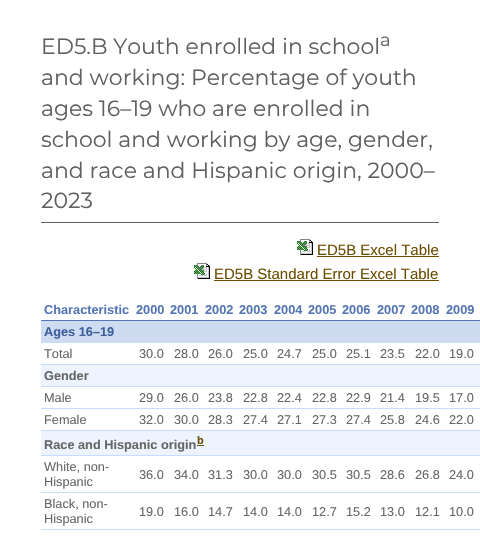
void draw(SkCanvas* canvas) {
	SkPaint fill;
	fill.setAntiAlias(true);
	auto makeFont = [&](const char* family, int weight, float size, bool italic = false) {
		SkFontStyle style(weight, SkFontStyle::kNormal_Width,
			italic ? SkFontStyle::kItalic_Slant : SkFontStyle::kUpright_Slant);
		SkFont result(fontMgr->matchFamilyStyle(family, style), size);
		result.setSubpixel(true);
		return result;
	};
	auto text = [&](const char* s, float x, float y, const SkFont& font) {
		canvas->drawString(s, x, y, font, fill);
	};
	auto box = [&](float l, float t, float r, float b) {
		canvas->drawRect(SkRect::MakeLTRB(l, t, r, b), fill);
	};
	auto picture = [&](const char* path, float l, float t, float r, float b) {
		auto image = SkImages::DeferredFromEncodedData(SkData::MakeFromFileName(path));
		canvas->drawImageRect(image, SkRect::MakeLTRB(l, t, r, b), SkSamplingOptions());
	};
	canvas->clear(0xFFFFFFFF);
	fill.setColor(0xFF5E5F61);
	box(41, 222, 439, 223);
	picture("image0.png", 297, 239, 313, 255);
	fill.setColor(0xFF6B4D00);
	box(317, 256, 439, 257);
	picture("image0.png", 194, 263, 210, 279);
	box(214, 280, 439, 281);
	fill.setColor(0xFFCEDBF1);
	box(41, 321, 480, 342);
	fill.setColor(0xFF5476B3);
	box(41, 320, 480, 321);
	fill.setColor(0xFFC7DDFF);
	box(41, 342, 480, 343);
	fill.setColor(0xFFEDF4FF);
	box(41, 365, 480, 386);
	fill.setColor(0xFFC7DDFF);
	box(41, 364, 480, 365);
	box(41, 386, 480, 387);
	box(41, 408, 480, 409);
	fill.setColor(0xFFEDF4FF);
	box(41, 431, 480, 455);
	fill.setColor(0xFFC7DDFF);
	box(41, 430, 480, 431);
	fill.setColor(0xFF6B4D00);
	box(197, 445, 204, 446);
	fill.setColor(0xFFC7DDFF);
	box(41, 455, 480, 456);
	box(41, 492, 480, 493);
	box(41, 529, 480, 530);
	auto font1 = makeFont("Montserrat", 400, 22);
	fill.setColor(0xFF5E5F61);
	text("ED5.B Youth enrolled in school", 41, 54, font1);
	auto font2 = makeFont("Montserrat", 400, 18);
	text("a", 380, 46, font2);
	text("and working: Percentage of youth", 41, 85, font1);
	text("ages 16–19 who are enrolled in", 41, 116, font1);
	text("school and working by age, gender,", 41, 147, font1);
	text("and race and Hispanic origin, 2000–", 41, 178, font1);
	text("2023", 41, 208, font1);
	auto font3 = makeFont("Liberation Sans", 400, 15);
	fill.setColor(0xFF6B4D00);
	text("ED5B Excel Table", 317, 255, font3);
	text("ED5B Standard Error Excel Table", 214, 279, font3);
	auto font4 = makeFont("Liberation Sans", 700, 12.75f);
	fill.setColor(0xFF5476B3);
	text("Characteristic", 44, 314, font4);
	text("2000", 136, 314, font4);
	text("2001", 170, 314, font4);
	text("2002", 205, 314, font4);
	text("2003", 239, 314, font4);
	text("2004", 274, 314, font4);
	text("2005", 308, 314, font4);
	text("2006", 342, 314, font4);
	text("2007", 377, 314, font4);
	text("2008", 411, 314, font4);
	text("2009", 446, 314, font4);
	fill.setColor(0xFF3D5F9C);
	text("Ages 16–19", 44, 336, font4);
	auto font5 = makeFont("Liberation Sans", 400, 12.75f);
	fill.setColor(0xFF666666);
	text("Total", 44, 358, font5);
	text("30.0", 139, 358, font5);
	text("28.0", 174, 358, font5);
	text("26.0", 208, 358, font5);
	text("25.0", 243, 358, font5);
	text("24.7", 277, 358, font5);
	text("25.0", 312, 358, font5);
	text("25.1", 346, 358, font5);
	text("23.5", 380, 358, font5);
	text("22.0", 415, 358, font5);
	text("19.0", 449, 358, font5);
	text("Gender", 44, 380, font4);
	text("Male", 44, 402, font5);
	text("29.0", 139, 402, font5);
	text("26.0", 174, 402, font5);
	text("23.8", 208, 402, font5);
	text("22.8", 243, 402, font5);
	text("22.4", 277, 402, font5);
	text("22.8", 312, 402, font5);
	text("22.9", 346, 402, font5);
	text("21.4", 380, 402, font5);
	text("19.5", 415, 402, font5);
	text("17.0", 449, 402, font5);
	text("Female", 44, 424, font5);
	text("32.0", 139, 424, font5);
	text("30.0", 174, 424, font5);
	text("28.3", 208, 424, font5);
	text("27.4", 243, 424, font5);
	text("27.1", 277, 424, font5);
	text("27.3", 312, 424, font5);
	text("27.4", 346, 424, font5);
	text("25.8", 380, 424, font5);
	text("24.6", 415, 424, font5);
	text("22.0", 449, 424, font5);
	text("Race and Hispanic origin", 44, 449, font4);
	auto font6 = makeFont("Liberation Sans", 700, 11);
	fill.setColor(0xFF6B4D00);
	text("b", 197, 444, font6);
	fill.setColor(0xFF666666);
	text("White, non-", 44, 471, font5);
	text("Hispanic", 44, 486, font5);
	text("36.0", 139, 479, font5);
	text("34.0", 174, 479, font5);
	text("31.3", 208, 479, font5);
	text("30.0", 243, 479, font5);
	text("30.0", 277, 479, font5);
	text("30.5", 312, 479, font5);
	text("30.5", 346, 479, font5);
	text("28.6", 380, 479, font5);
	text("26.8", 415, 479, font5);
	text("24.0", 449, 479, font5);
	text("Black, non-", 44, 508, font5);
	text("Hispanic", 44, 523, font5);
	text("19.0", 139, 516, font5);
	text("16.0", 174, 516, font5);
	text("14.7", 208, 516, font5);
	text("14.0", 243, 516, font5);
	text("14.0", 277, 516, font5);
	text("12.7", 312, 516, font5);
	text("15.2", 346, 516, font5);
	text("13.0", 380, 516, font5);
	text("12.1", 415, 516, font5);
	text("10.0", 449, 516, font5);
}
